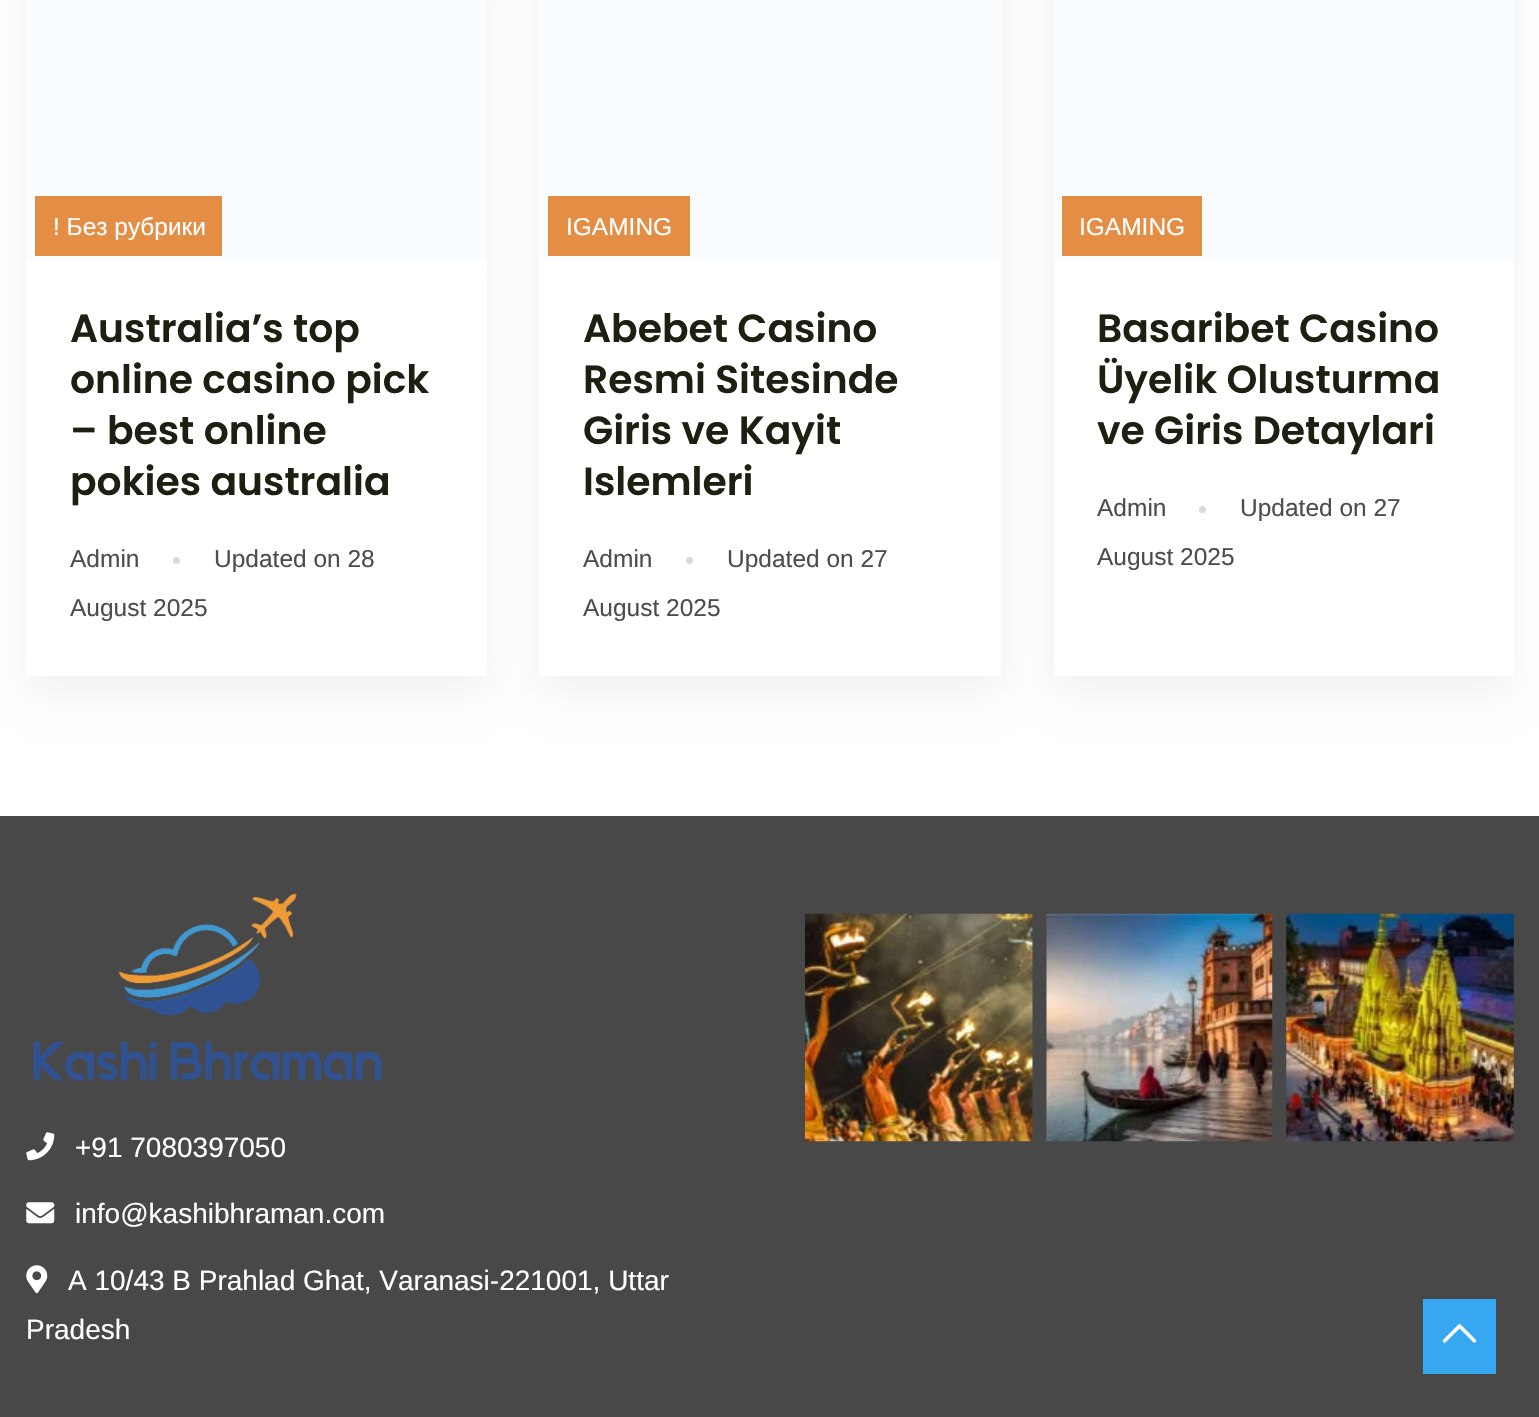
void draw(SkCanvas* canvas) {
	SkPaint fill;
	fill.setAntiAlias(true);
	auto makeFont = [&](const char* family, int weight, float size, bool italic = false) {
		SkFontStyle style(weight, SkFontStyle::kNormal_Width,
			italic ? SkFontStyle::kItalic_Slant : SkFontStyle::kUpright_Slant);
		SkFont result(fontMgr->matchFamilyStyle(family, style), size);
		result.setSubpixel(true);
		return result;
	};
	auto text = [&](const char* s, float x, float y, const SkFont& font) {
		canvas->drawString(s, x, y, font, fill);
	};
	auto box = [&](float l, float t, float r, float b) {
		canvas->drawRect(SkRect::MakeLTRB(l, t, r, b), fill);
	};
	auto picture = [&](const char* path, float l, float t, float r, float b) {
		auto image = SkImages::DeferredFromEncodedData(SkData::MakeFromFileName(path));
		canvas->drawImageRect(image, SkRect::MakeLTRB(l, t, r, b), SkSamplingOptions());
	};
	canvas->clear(0xFFFFFFFF);
	fill.setColor(0x0D000000);
	fill.setMaskFilter(SkMaskFilter::MakeBlur(kNormal_SkBlurStyle, 17.5f));
	canvas->drawRect(SkRect::MakeLTRB(26, -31, 487, 693), fill);
	fill.setMaskFilter(nullptr);
	fill.setColor(0xFFFFFFFF);
	box(26, 261, 487, 676);
	fill.setColor(0x0D000000);
	fill.setMaskFilter(SkMaskFilter::MakeBlur(kNormal_SkBlurStyle, 17.5f));
	canvas->drawRect(SkRect::MakeLTRB(539, -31, 1001, 693), fill);
	fill.setMaskFilter(nullptr);
	fill.setColor(0xFFF9FDFF);
	box(26, 0, 487, 261);
	fill.setColor(0xFFE48E45);
	box(35, 196, 222, 256);
	fill.setColor(0xFFD9D9D9);
	canvas->drawCircle(176.5f, 560.5f, 3.5f, fill);
	fill.setColor(0xFFFFFFFF);
	box(539, 0, 1001, 676);
	fill.setColor(0xFFF9FDFF);
	box(539, 0, 1000, 261);
	fill.setColor(0xFFE48E45);
	box(548, 196, 690, 256);
	fill.setColor(0xFFD9D9D9);
	canvas->drawCircle(689.5f, 560.5f, 3.5f, fill);
	fill.setColor(0x0D000000);
	fill.setMaskFilter(SkMaskFilter::MakeBlur(kNormal_SkBlurStyle, 17.5f));
	canvas->drawRect(SkRect::MakeLTRB(1054, -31, 1514, 693), fill);
	fill.setMaskFilter(nullptr);
	fill.setColor(0xFFFFFFFF);
	box(1054, 261, 1514, 676);
	fill.setColor(0xFFF9FDFF);
	box(1054, 0, 1514, 261);
	fill.setColor(0xFFE48E45);
	box(1062, 196, 1202, 256);
	fill.setColor(0xFFD9D9D9);
	canvas->drawCircle(1202.5f, 509.5f, 3.5f, fill);
	fill.setColor(0xFF484848);
	box(0, 816, 1539, 1417);
	picture("image0.png", 805, 913, 1033, 1142);
	picture("image1.png", 1046, 913, 1273, 1142);
	picture("image2.png", 1286, 913, 1514, 1142);
	picture("image3.png", 33, 893, 382, 1081);
	picture("image4.png", 26, 1132, 55, 1161);
	picture("image5.png", 26, 1202, 55, 1224);
	picture("image6.png", 26, 1265, 48, 1294);
	fill.setColor(0xFF37A7F2);
	box(1423, 1299, 1496, 1374);
	picture("image7.png", 1442, 1324, 1477, 1343);
	auto font1 = makeFont("Liberation Sans", 400, 24.5f);
	fill.setColor(0xFFFFFFFF);
	text("! Без рубрики", 53, 235, font1);
	auto font2 = makeFont("Poppins", 600, 39.25f);
	fill.setColor(0xFF1C2011);
	text("Australia’s top", 70, 342, font2);
	text("online casino pick", 70, 393, font2);
	text("– best online", 70, 444, font2);
	text("pokies australia", 70, 495, font2);
	fill.setColor(0xFF4D4D4D);
	text("Admin", 70, 567, font1);
	text("Updated on 28", 214, 567, font1);
	text("August 2025", 70, 616, font1);
	fill.setColor(0xFFFFFFFF);
	text("IGAMING", 566, 235, font1);
	fill.setColor(0xFF1C2011);
	text("Abebet Casino", 583, 342, font2);
	text("Resmi Sitesinde", 583, 393, font2);
	text("Giris ve Kayit", 583, 444, font2);
	text("Islemleri", 583, 495, font2);
	fill.setColor(0xFF4D4D4D);
	text("Admin", 583, 567, font1);
	text("Updated on 27", 727, 567, font1);
	text("August 2025", 583, 616, font1);
	fill.setColor(0xFFFFFFFF);
	text("IGAMING", 1079, 235, font1);
	fill.setColor(0xFF1C2011);
	text("Basaribet Casino", 1097, 342, font2);
	text("Üyelik Olusturma", 1097, 393, font2);
	text("ve Giris Detaylari", 1097, 444, font2);
	fill.setColor(0xFF4D4D4D);
	text("Admin", 1097, 516, font1);
	text("Updated on 27", 1240, 516, font1);
	text("August 2025", 1097, 565, font1);
	auto font3 = makeFont("Liberation Sans", 400, 28);
	fill.setColor(0xFFFFFFFF);
	text("+91 7080397050", 75, 1157, font3);
	text("info@kashibhraman.com", 75, 1223, font3);
	text("A 10/43 B Prahlad Ghat, Varanasi-221001, Uttar", 68, 1290, font3);
	text("Pradesh", 26, 1339, font3);
}
